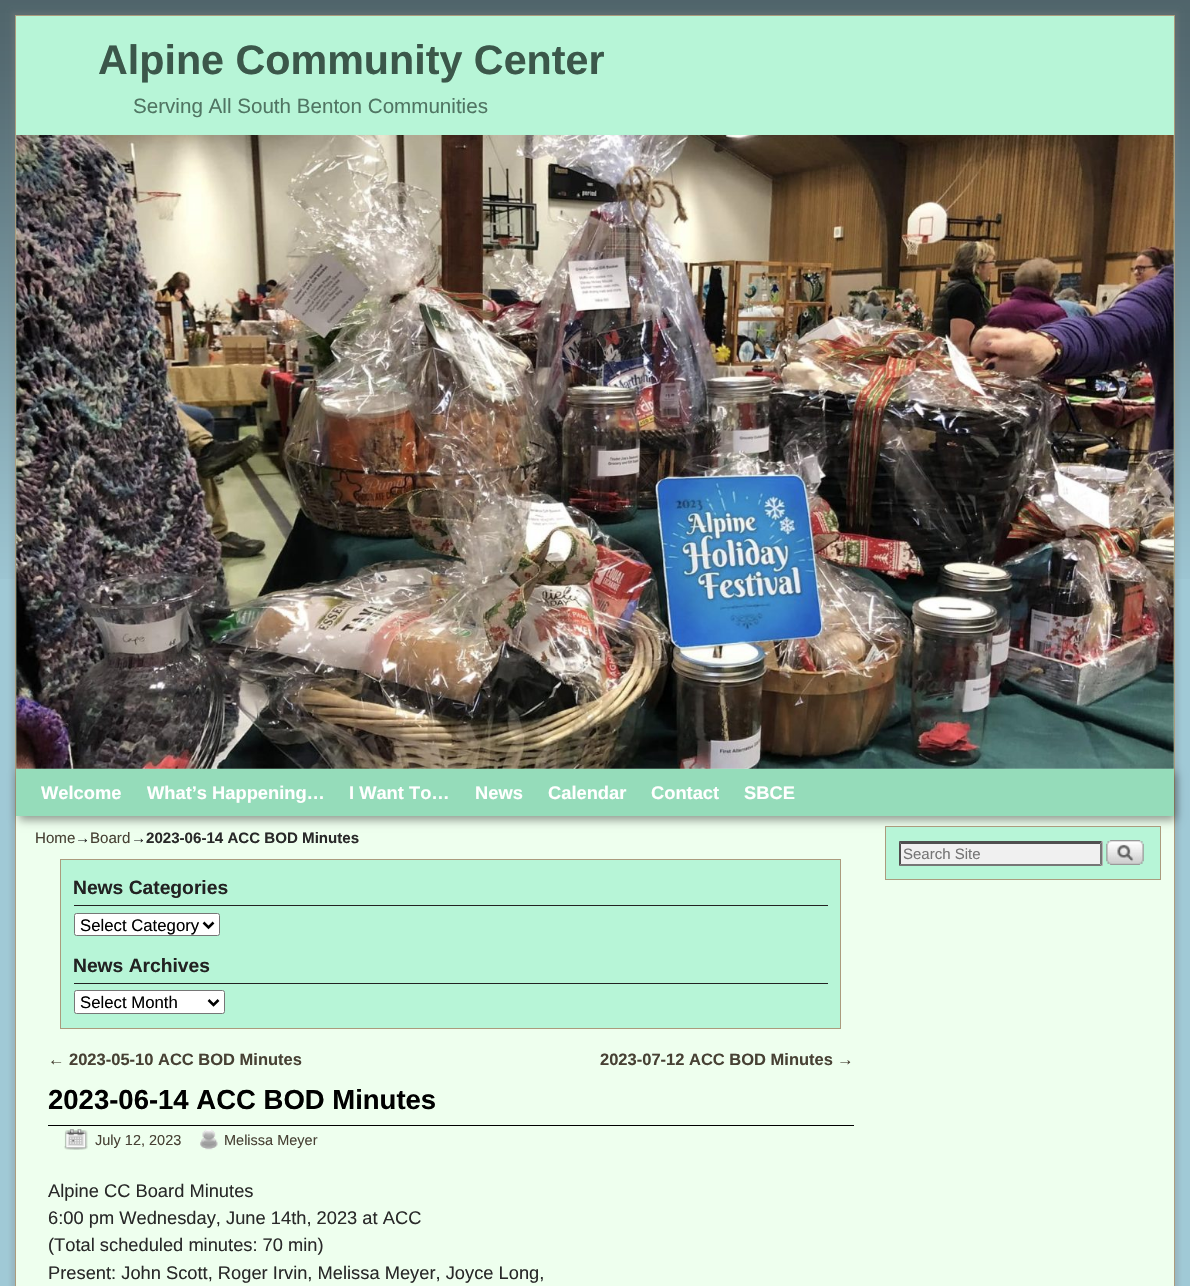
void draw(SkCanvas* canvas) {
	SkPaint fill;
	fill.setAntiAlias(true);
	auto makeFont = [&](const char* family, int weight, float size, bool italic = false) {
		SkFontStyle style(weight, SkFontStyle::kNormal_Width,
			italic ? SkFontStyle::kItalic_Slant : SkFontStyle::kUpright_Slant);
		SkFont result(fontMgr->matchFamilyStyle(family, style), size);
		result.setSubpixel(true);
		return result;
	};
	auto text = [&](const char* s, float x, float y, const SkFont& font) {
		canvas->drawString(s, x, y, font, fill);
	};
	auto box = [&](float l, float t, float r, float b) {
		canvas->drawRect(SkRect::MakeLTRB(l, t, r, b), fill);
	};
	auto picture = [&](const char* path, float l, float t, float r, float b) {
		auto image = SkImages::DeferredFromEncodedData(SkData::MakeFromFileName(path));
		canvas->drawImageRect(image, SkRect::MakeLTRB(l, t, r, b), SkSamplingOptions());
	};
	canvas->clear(0xFFA0C9D6);
	picture("image0.png", 0, 0, 1190, 579);
	fill.setColor(0x407F7F7F);
	fill.setMaskFilter(SkMaskFilter::MakeBlur(kNormal_SkBlurStyle, 2));
	canvas->drawRect(SkRect::MakeLTRB(11, 11, 1179, 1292), fill);
	fill.setMaskFilter(nullptr);
	fill.setColor(0xFFEEFFEE);
	box(16, 816, 1174, 1286);
	fill.setStyle(SkPaint::kStroke_Style);
	fill.setStrokeWidth(1);
	fill.setColor(0xFFAB9B7D);
	canvas->drawRect(SkRect::MakeLTRB(15.5f, 15.5f, 1174.5f, 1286.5f), fill);
	fill.setStyle(SkPaint::kFill_Style);
	fill.setColor(0x66000000);
	fill.setMaskFilter(SkMaskFilter::MakeBlur(kNormal_SkBlurStyle, 4.5f));
	canvas->drawRect(SkRect::MakeLTRB(19, 773, 1176, 820), fill);
	fill.setMaskFilter(nullptr);
	fill.setColor(0xFFB7F5D7);
	box(16, 16, 1174, 769);
	picture("image1.png", 16, 135, 1174, 769);
	fill.setColor(0xFF95DCBA);
	box(16, 769, 1174, 816);
	fill.setColor(0xFFB7F5D7);
	canvas->drawRect(SkRect::MakeLTRB(60.5f, 859.5f, 840.5f, 1028.5f), fill);
	fill.setStyle(SkPaint::kStroke_Style);
	fill.setColor(0xFFAB9B7D);
	canvas->drawRect(SkRect::MakeLTRB(60.5f, 859.5f, 840.5f, 1028.5f), fill);
	fill.setStyle(SkPaint::kFill_Style);
	fill.setColor(0xFF222222);
	box(74, 905, 828, 906);
	fill.setColor(0xFFFFFFFF);
	canvas->drawRoundRect(SkRect::MakeLTRB(74.5f, 913.5f, 219.5f, 935.5f), 2, 2, fill);
	fill.setStyle(SkPaint::kStroke_Style);
	fill.setColor(0xFF767676);
	canvas->drawRoundRect(SkRect::MakeLTRB(74.5f, 913.5f, 219.5f, 935.5f), 2, 2, fill);
	fill.setStrokeWidth(2.5f);
	fill.setColor(0xFF000000);
	canvas->drawPath(SkPathBuilder().moveTo(203.5f, 922.5f).lineTo(208.5f, 927.5f).lineTo(213.5f, 922.5f).detach(), fill);
	fill.setStyle(SkPaint::kFill_Style);
	fill.setColor(0xFF222222);
	box(74, 983, 828, 984);
	fill.setColor(0xFFFFFFFF);
	canvas->drawRoundRect(SkRect::MakeLTRB(74.5f, 990.5f, 224.5f, 1013.5f), 2, 2, fill);
	fill.setStyle(SkPaint::kStroke_Style);
	fill.setStrokeWidth(1);
	fill.setColor(0xFF767676);
	canvas->drawRoundRect(SkRect::MakeLTRB(74.5f, 990.5f, 224.5f, 1013.5f), 2, 2, fill);
	fill.setStrokeWidth(2.5f);
	fill.setColor(0xFF000000);
	canvas->drawPath(SkPathBuilder().moveTo(208.5f, 1000).lineTo(213.5f, 1005).lineTo(218.5f, 1000).detach(), fill);
	fill.setStyle(SkPaint::kFill_Style);
	box(48, 1125, 854, 1126);
	picture("image2.png", 64, 1129, 88, 1150);
	picture("image3.png", 200, 1129, 218, 1150);
	fill.setColor(0xFFB7F5D7);
	canvas->drawRect(SkRect::MakeLTRB(885.5f, 826.5f, 1160.5f, 879.5f), fill);
	fill.setStyle(SkPaint::kStroke_Style);
	fill.setStrokeWidth(1);
	fill.setColor(0xFFAB9B7D);
	canvas->drawRect(SkRect::MakeLTRB(885.5f, 826.5f, 1160.5f, 879.5f), fill);
	fill.setStyle(SkPaint::kFill_Style);
	fill.setColor(0xFFF0F0F0);
	box(899, 841, 1103, 866);
	fill.setColor(0xFF4F4F4F);
	canvas->drawPath(SkPathBuilder().moveTo(899, 841).lineTo(1102, 841).lineTo(1100, 844).lineTo(901, 844).close().detach(), fill);
	fill.setColor(0xFF767676);
	canvas->drawPath(SkPathBuilder().moveTo(1102.5f, 841).lineTo(1102.5f, 866).lineTo(1100, 864).lineTo(1100, 844).close().detach(), fill);
	canvas->drawPath(SkPathBuilder().moveTo(1102, 866).lineTo(899, 866).lineTo(901, 864).lineTo(1100, 864).close().detach(), fill);
	fill.setColor(0xFF4F4F4F);
	canvas->drawPath(SkPathBuilder().moveTo(899, 866).lineTo(899, 841).lineTo(901, 844).lineTo(901, 864).close().detach(), fill);
	picture("image4.png", 1106, 840, 1144, 865);
	auto font1 = makeFont("Liberation Sans", 700, 41.25f);
	fill.setColor(0xFF3B574A);
	text("Alpine Community Center", 98, 74, font1);
	auto font2 = makeFont("Liberation Sans", 400, 20.6f);
	fill.setColor(0xFF507563);
	text("Serving All South Benton Communities", 133, 113, font2);
	auto font3 = makeFont("Liberation Sans", 700, 18.3f);
	fill.setColor(0xFFFFFFFF);
	text("Welcome", 41, 799, font3);
	text("What’s Happening…", 147, 799, font3);
	text("I Want To…", 349, 799, font3);
	text("News", 475, 799, font3);
	text("Calendar", 548, 799, font3);
	text("Contact", 651, 799, font3);
	text("SBCE", 744, 799, font3);
	auto font4 = makeFont("Liberation Sans", 400, 15.1f);
	fill.setColor(0xFF474134);
	text("Home", 35, 843, font4);
	fill.setColor(0xFF292929);
	text("→", 75, 843, font4);
	fill.setColor(0xFF474134);
	text("Board", 90, 843, font4);
	fill.setColor(0xFF292929);
	text("→", 131, 843, font4);
	auto font5 = makeFont("Liberation Sans", 700, 15.1f);
	text("2023-06-14 ACC BOD Minutes", 146, 843, font5);
	auto font6 = makeFont("Liberation Sans", 700, 19.25f);
	fill.setColor(0xFF222222);
	text("News Categories", 73, 894, font6);
	auto font7 = makeFont("Liberation Sans", 400, 16.75f);
	fill.setColor(0xFF000000);
	text("Select Category", 80, 931, font7);
	fill.setColor(0xFF222222);
	text("News Archives", 73, 972, font6);
	fill.setColor(0xFF000000);
	text("Select Month", 80, 1008, font7);
	auto font8 = makeFont("Liberation Sans", 400, 16.5f);
	fill.setColor(0xFF474134);
	text("←", 48, 1065, font8);
	auto font9 = makeFont("Liberation Sans", 700, 16.5f);
	text("2023-05-10 ACC BOD Minutes", 69, 1065, font9);
	text("2023-07-12 ACC BOD Minutes", 600, 1065, font9);
	text("→", 837, 1065, font8);
	auto font10 = makeFont("Liberation Sans", 700, 27.5f);
	fill.setColor(0xFF000000);
	text("2023-06-14 ACC BOD Minutes", 48, 1109, font10);
	auto font11 = makeFont("Liberation Sans", 400, 14.5f);
	fill.setColor(0xFF474134);
	text("July 12, 2023", 95, 1145, font11);
	text("Melissa Meyer", 224, 1145, font11);
	auto font12 = makeFont("Liberation Sans", 400, 18.3f);
	fill.setColor(0xFF292929);
	text("Alpine CC Board Minutes", 48, 1197, font12);
	text("6:00 pm Wednesday, June 14th, 2023 at ACC", 48, 1224, font12);
	text("(Total scheduled minutes: 70 min)", 48, 1251, font12);
	text("Present: John Scott, Roger Irvin, Melissa Meyer, Joyce Long,", 48, 1279, font12);
	auto font13 = makeFont("Liberation Sans", 400, 15);
	fill.setColor(0xFF757575);
	text("Search Site", 903, 859, font13);
}
